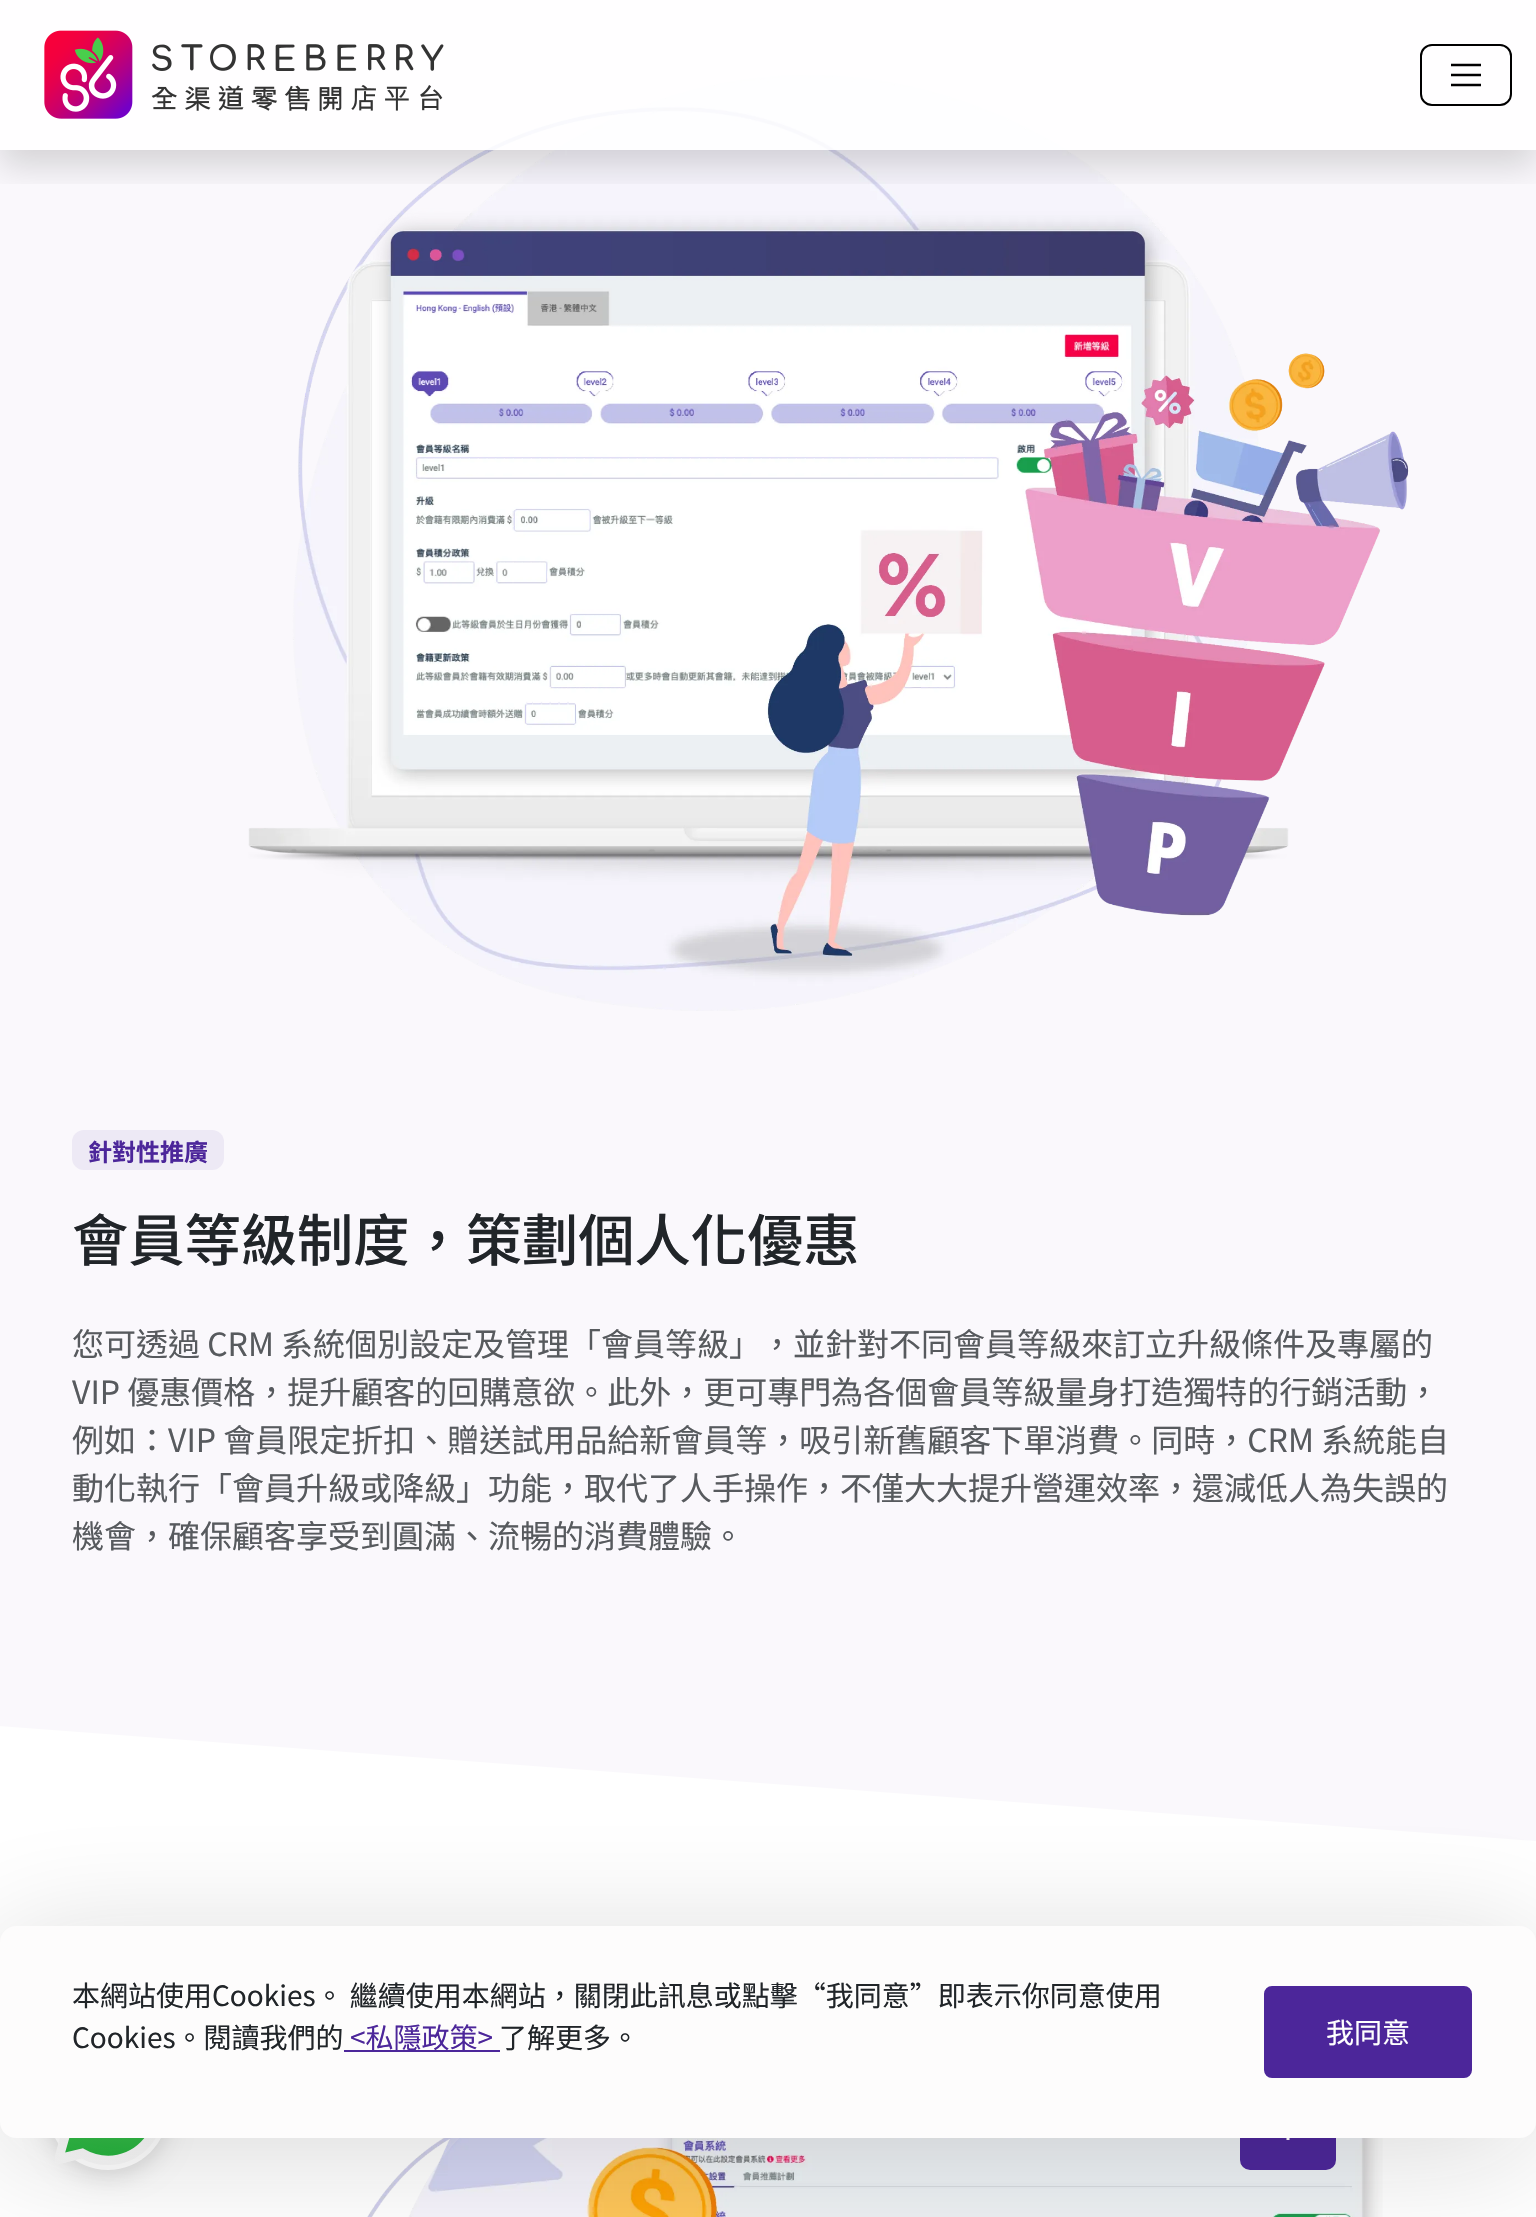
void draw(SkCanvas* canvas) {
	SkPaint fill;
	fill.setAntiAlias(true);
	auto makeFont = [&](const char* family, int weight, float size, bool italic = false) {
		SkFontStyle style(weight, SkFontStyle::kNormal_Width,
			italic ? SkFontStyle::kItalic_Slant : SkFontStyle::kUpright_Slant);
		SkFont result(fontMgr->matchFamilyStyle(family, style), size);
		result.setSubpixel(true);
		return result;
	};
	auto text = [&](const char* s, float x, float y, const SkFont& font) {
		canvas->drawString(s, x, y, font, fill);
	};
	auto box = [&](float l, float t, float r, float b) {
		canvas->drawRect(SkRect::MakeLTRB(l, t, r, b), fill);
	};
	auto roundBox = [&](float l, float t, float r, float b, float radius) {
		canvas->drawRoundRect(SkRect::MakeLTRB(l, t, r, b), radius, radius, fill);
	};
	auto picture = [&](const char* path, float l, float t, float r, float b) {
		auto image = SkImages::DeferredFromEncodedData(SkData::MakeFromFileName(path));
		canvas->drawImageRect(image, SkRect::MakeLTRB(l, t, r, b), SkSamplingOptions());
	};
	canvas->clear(0xFFFFFFFF);
	fill.setColor(0xFFFAF8FC);
	box(0, 0, 1536, 1726);
	picture("image2.png", 248, 75, 1409, 1011);
	canvas->save();
	canvas->clipRect(SkRect::MakeLTRB(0, 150, 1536, 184));
	fill.setColor(0x26000000);
	fill.setMaskFilter(SkMaskFilter::MakeBlur(kNormal_SkBlurStyle, 16));
	canvas->drawRect(SkRect::MakeLTRB(0, 16, 1536, 166), fill);
	fill.setMaskFilter(nullptr);
	canvas->restore();
	fill.setColor(0xD9FFFFFF);
	box(0, 0, 1536, 150);
	picture("image0.png", 44, 30, 444, 119);
	fill.setStyle(SkPaint::kStroke_Style);
	fill.setStrokeWidth(2);
	fill.setColor(0xFF000000);
	canvas->drawRoundRect(SkRect::MakeLTRB(1421, 45, 1511, 105), 11, 11, fill);
	picture("image1.png", 1451, 63, 1481, 87);
	fill.setStyle(SkPaint::kFill_Style);
	fill.setColor(0xFFEDE9F5);
	roundBox(72, 1130, 224, 1170, 12);
	fill.setColor(0xFFFAF8FC);
	canvas->drawPath(SkPathBuilder().moveTo(0, 1726).lineTo(1536, 1726).lineTo(1536, 1841).close().detach(), fill);
	picture("image3.png", 367, 2138, 1383, 2217);
	canvas->save();
	canvas->clipPath(SkPathBuilder(SkPathFillType::kEvenOdd).moveTo(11, 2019).lineTo(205, 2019).lineTo(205, 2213).lineTo(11, 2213).close().moveTo(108, 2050).cubicTo(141, 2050, 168, 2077, 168, 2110).cubicTo(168, 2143, 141, 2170, 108, 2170).cubicTo(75, 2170, 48, 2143, 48, 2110).cubicTo(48, 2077, 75, 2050, 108, 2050).close().detach(), true);
	fill.setColor(0x26000000);
	fill.setMaskFilter(SkMaskFilter::MakeBlur(kNormal_SkBlurStyle, 12));
	canvas->drawRoundRect(SkRect::MakeLTRB(48, 2056, 168, 2176), 60, 60, fill);
	fill.setMaskFilter(nullptr);
	canvas->restore();
	picture("image4.png", 55, 2138, 156, 2165);
	fill.setColor(0xFF4C269A);
	canvas->drawRoundRect(SkRect::MakeLTRB(1241, 2075, 1335, 2169), 9, 9, fill);
	fill.setStyle(SkPaint::kStroke_Style);
	canvas->drawRoundRect(SkRect::MakeLTRB(1241, 2075, 1335, 2169), 9, 9, fill);
	fill.setStyle(SkPaint::kFill_Style);
	fill.setColor(0xFFFFFFFF);
	canvas->drawPath(SkPathBuilder().moveTo(1288, 2104).lineTo(1274, 2118).lineTo(1276.5f, 2120).lineTo(1286.5f, 2110).lineTo(1286.5f, 2140).lineTo(1289.5f, 2140).lineTo(1289.5f, 2110).lineTo(1299.5f, 2120).lineTo(1302, 2118).close().detach(), fill);
	fill.setColor(0x29141414);
	fill.setMaskFilter(SkMaskFilter::MakeBlur(kNormal_SkBlurStyle, 64));
	canvas->drawRoundRect(SkRect::MakeLTRB(0, 1942, 1536, 2154), 16, 16, fill);
	fill.setMaskFilter(nullptr);
	fill.setColor(0xFFFDFCFC);
	roundBox(0, 1926, 1536, 2138, 16);
	fill.setColor(0xFF4C269A);
	box(344, 2050, 500, 2052);
	canvas->drawRoundRect(SkRect::MakeLTRB(1265, 1987, 1471, 2077), 7, 7, fill);
	fill.setStyle(SkPaint::kStroke_Style);
	canvas->drawRoundRect(SkRect::MakeLTRB(1265, 1987, 1471, 2077), 7, 7, fill);
	auto font1 = makeFont("Noto Sans TC", 700, 24);
	fill.setStyle(SkPaint::kFill_Style);
	text("針對性推廣", 88, 1161, font1);
	auto font2 = makeFont("Noto Sans TC", 500, 56.25f);
	fill.setColor(0xFF212529);
	text("會員等級制度，策劃個人化優惠", 72, 1261, font2);
	auto font3 = makeFont("Noto Sans TC", 400, 32);
	fill.setColor(0xFF575A5E);
	text("您可透過 CRM 系統個別設定及管理「會員等級」，並針對不同會員等級來訂立升級條件及專屬的", 72, 1356, font3);
	text("VIP 優惠價格，提升顧客的回購意欲。此外，更可專門為各個會員等級量身打造獨特的行銷活動，", 72, 1404, font3);
	text("例如：VIP 會員限定折扣、贈送試用品給新會員等，吸引新舊顧客下單消費。同時，CRM 系統能自", 72, 1452, font3);
	text("動化執行「會員升級或降級」功能，取代了人手操作，不僅大大提升營運效率，還減低人為失誤的", 72, 1500, font3);
	text("機會，確保顧客享受到圓滿、流暢的消費體驗。", 72, 1548, font3);
	auto font4 = makeFont("Noto Sans TC", 400, 28);
	fill.setColor(0xFF212529);
	text("本網站使用Cookies。 繼續使用本網站，關閉此訊息或點擊“我同意”即表示你同意使用", 72, 2006, font4);
	text("Cookies。閱讀我們的", 72, 2048, font4);
	fill.setColor(0xFF4C269A);
	text("<私隱政策>", 350, 2048, font4);
	fill.setColor(0xFF212529);
	text("了解更多。", 499, 2048, font4);
	fill.setColor(0xFFFFFFFF);
	text("我同意", 1326, 2043, font4);
}
